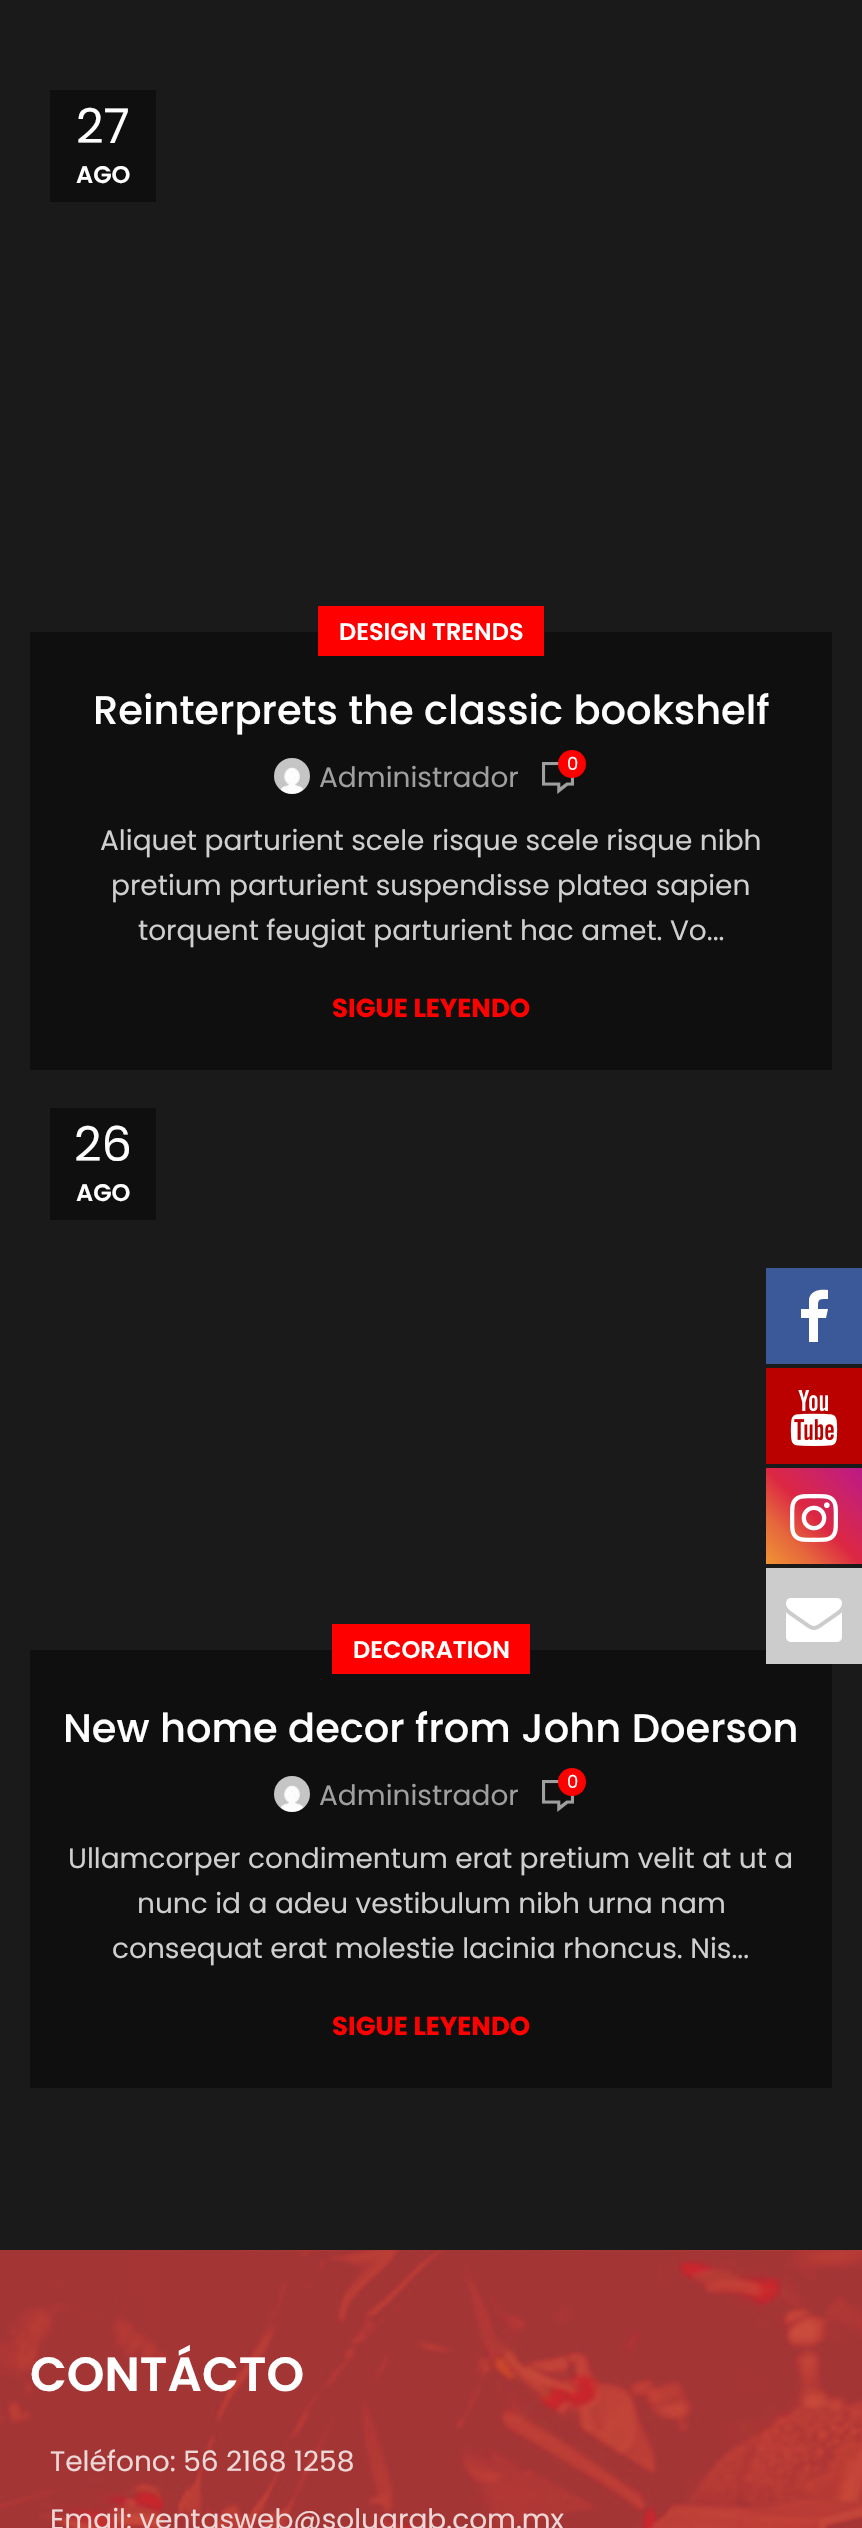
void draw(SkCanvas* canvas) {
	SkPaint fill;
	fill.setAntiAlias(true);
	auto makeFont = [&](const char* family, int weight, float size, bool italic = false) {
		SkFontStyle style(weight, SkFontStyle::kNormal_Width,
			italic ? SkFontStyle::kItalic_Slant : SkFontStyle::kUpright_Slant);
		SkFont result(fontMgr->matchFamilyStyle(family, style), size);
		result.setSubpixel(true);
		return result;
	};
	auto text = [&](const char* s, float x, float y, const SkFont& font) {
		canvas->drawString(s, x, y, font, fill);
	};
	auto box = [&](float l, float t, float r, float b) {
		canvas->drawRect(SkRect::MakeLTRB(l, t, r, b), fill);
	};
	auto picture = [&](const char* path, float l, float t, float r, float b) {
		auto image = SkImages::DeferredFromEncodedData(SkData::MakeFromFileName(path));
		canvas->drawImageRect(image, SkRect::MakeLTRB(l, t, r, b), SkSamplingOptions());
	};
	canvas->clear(0xFF1A1A1A);
	fill.setColor(0xFF0F0F0F);
	box(50, 90, 156, 202);
	box(30, 632, 832, 1070);
	fill.setColor(0xFFFE0000);
	box(318, 606, 544, 656);
	picture("image0.png", 542, 762, 574, 794);
	canvas->drawCircle(572, 764, 14, fill);
	picture("image1.png", 274, 758, 310, 794);
	fill.setColor(0xFF0F0F0F);
	box(50, 1108, 156, 1220);
	box(30, 1650, 832, 2088);
	fill.setColor(0xFFFE0000);
	box(332, 1624, 530, 1674);
	picture("image0.png", 542, 1780, 574, 1812);
	canvas->drawCircle(572, 1782, 14, fill);
	picture("image2.png", 274, 1776, 310, 1812);
	picture("image3.png", 0, 2250, 862, 2528);
	fill.setColor(0xFF3B5998);
	box(766, 1268, 862, 1364);
	fill.setColor(0xFFFFFFFF);
	canvas->drawPath(SkPathBuilder().moveTo(828, 1290).lineTo(828, 1299).cubicTo(818, 1299, 818, 1299, 818, 1309).lineTo(828, 1309).lineTo(826, 1318).lineTo(818, 1318).lineTo(818, 1342).lineTo(809, 1342).lineTo(809, 1318).lineTo(801, 1318).lineTo(801, 1309).lineTo(809, 1309).lineTo(809, 1299).cubicTo(811, 1290, 820, 1289, 828, 1290).close().detach(), fill);
	fill.setColor(0xFFBB0000);
	box(766, 1368, 862, 1464);
	picture("image4.png", 790, 1390, 838, 1446);
	{
		const SkColor colors[] = {0xFFF09433, 0xFFE6683C, 0xFFDC2743, 0xFFCC2366, 0xFFBC1888};
		const float stops[] = {0, 0.25f, 0.5f, 0.75f, 1};
		const SkPoint ends[] = {{766, 1564}, {862, 1468}};
		fill.setShader(SkGradientShader::MakeLinear(ends, colors, stops, 5, SkTileMode::kClamp));
		fill.setAlpha(255);
	}
	box(766, 1468, 862, 1564);
	picture("image5.png", 790, 1494, 838, 1542);
	fill.setShader(nullptr);
	fill.setColor(0xFFCCCCCC);
	box(766, 1568, 862, 1664);
	picture("image6.png", 786, 1598, 842, 1642);
	auto font1 = makeFont("Poppins", 400, 48);
	fill.setColor(0xFFFFFFFF);
	text("27", 76, 143, font1);
	auto font2 = makeFont("Poppins", 600, 24);
	text("AGO", 76, 183, font2);
	text("DESIGN TRENDS", 339, 640, font2);
	auto font3 = makeFont("Poppins", 500, 40);
	text("Reinterprets the classic bookshelf", 93, 724, font3);
	auto font4 = makeFont("Poppins", 400, 18);
	text("0", 567, 770, font4);
	auto font5 = makeFont("Poppins", 400, 28);
	fill.setColor(0xFF9F9F9F);
	text("Administrador", 319, 787, font5);
	fill.setColor(0xFFCFCFCF);
	text("Aliquet parturient scele risque scele risque nibh", 100, 850, font5);
	text("pretium parturient suspendisse platea sapien", 111, 895, font5);
	text("torquent feugiat parturient hac amet. Vo...", 138, 940, font5);
	auto font6 = makeFont("Poppins", 700, 26);
	fill.setColor(0xFFFE0000);
	text("SIGUE LEYENDO", 332, 1017, font6);
	fill.setColor(0xFFFFFFFF);
	text("26", 74, 1161, font1);
	text("AGO", 76, 1201, font2);
	text("DECORATION", 353, 1658, font2);
	text("New home decor from John Doerson", 63, 1742, font3);
	text("0", 567, 1788, font4);
	fill.setColor(0xFF9F9F9F);
	text("Administrador", 319, 1805, font5);
	fill.setColor(0xFFCFCFCF);
	text("Ullamcorper condimentum erat pretium velit at ut a", 68, 1868, font5);
	text("nunc id a adeu vestibulum nibh urna nam", 137, 1913, font5);
	text("consequat erat molestie lacinia rhoncus. Nis...", 112, 1958, font5);
	fill.setColor(0xFFFE0000);
	text("SIGUE LEYENDO", 332, 2035, font6);
	auto font7 = makeFont("Poppins", 600, 48);
	fill.setColor(0xFFFFFFFF);
	text("CONTÁCTO", 30, 2391, font7);
	fill.setColor(0xFFEDD7D7);
	text("Teléfono: 56 2168 1258", 50, 2471, font5);
	text("Email: ventasweb@solugrab.com.mx", 50, 2529, font5);
}
